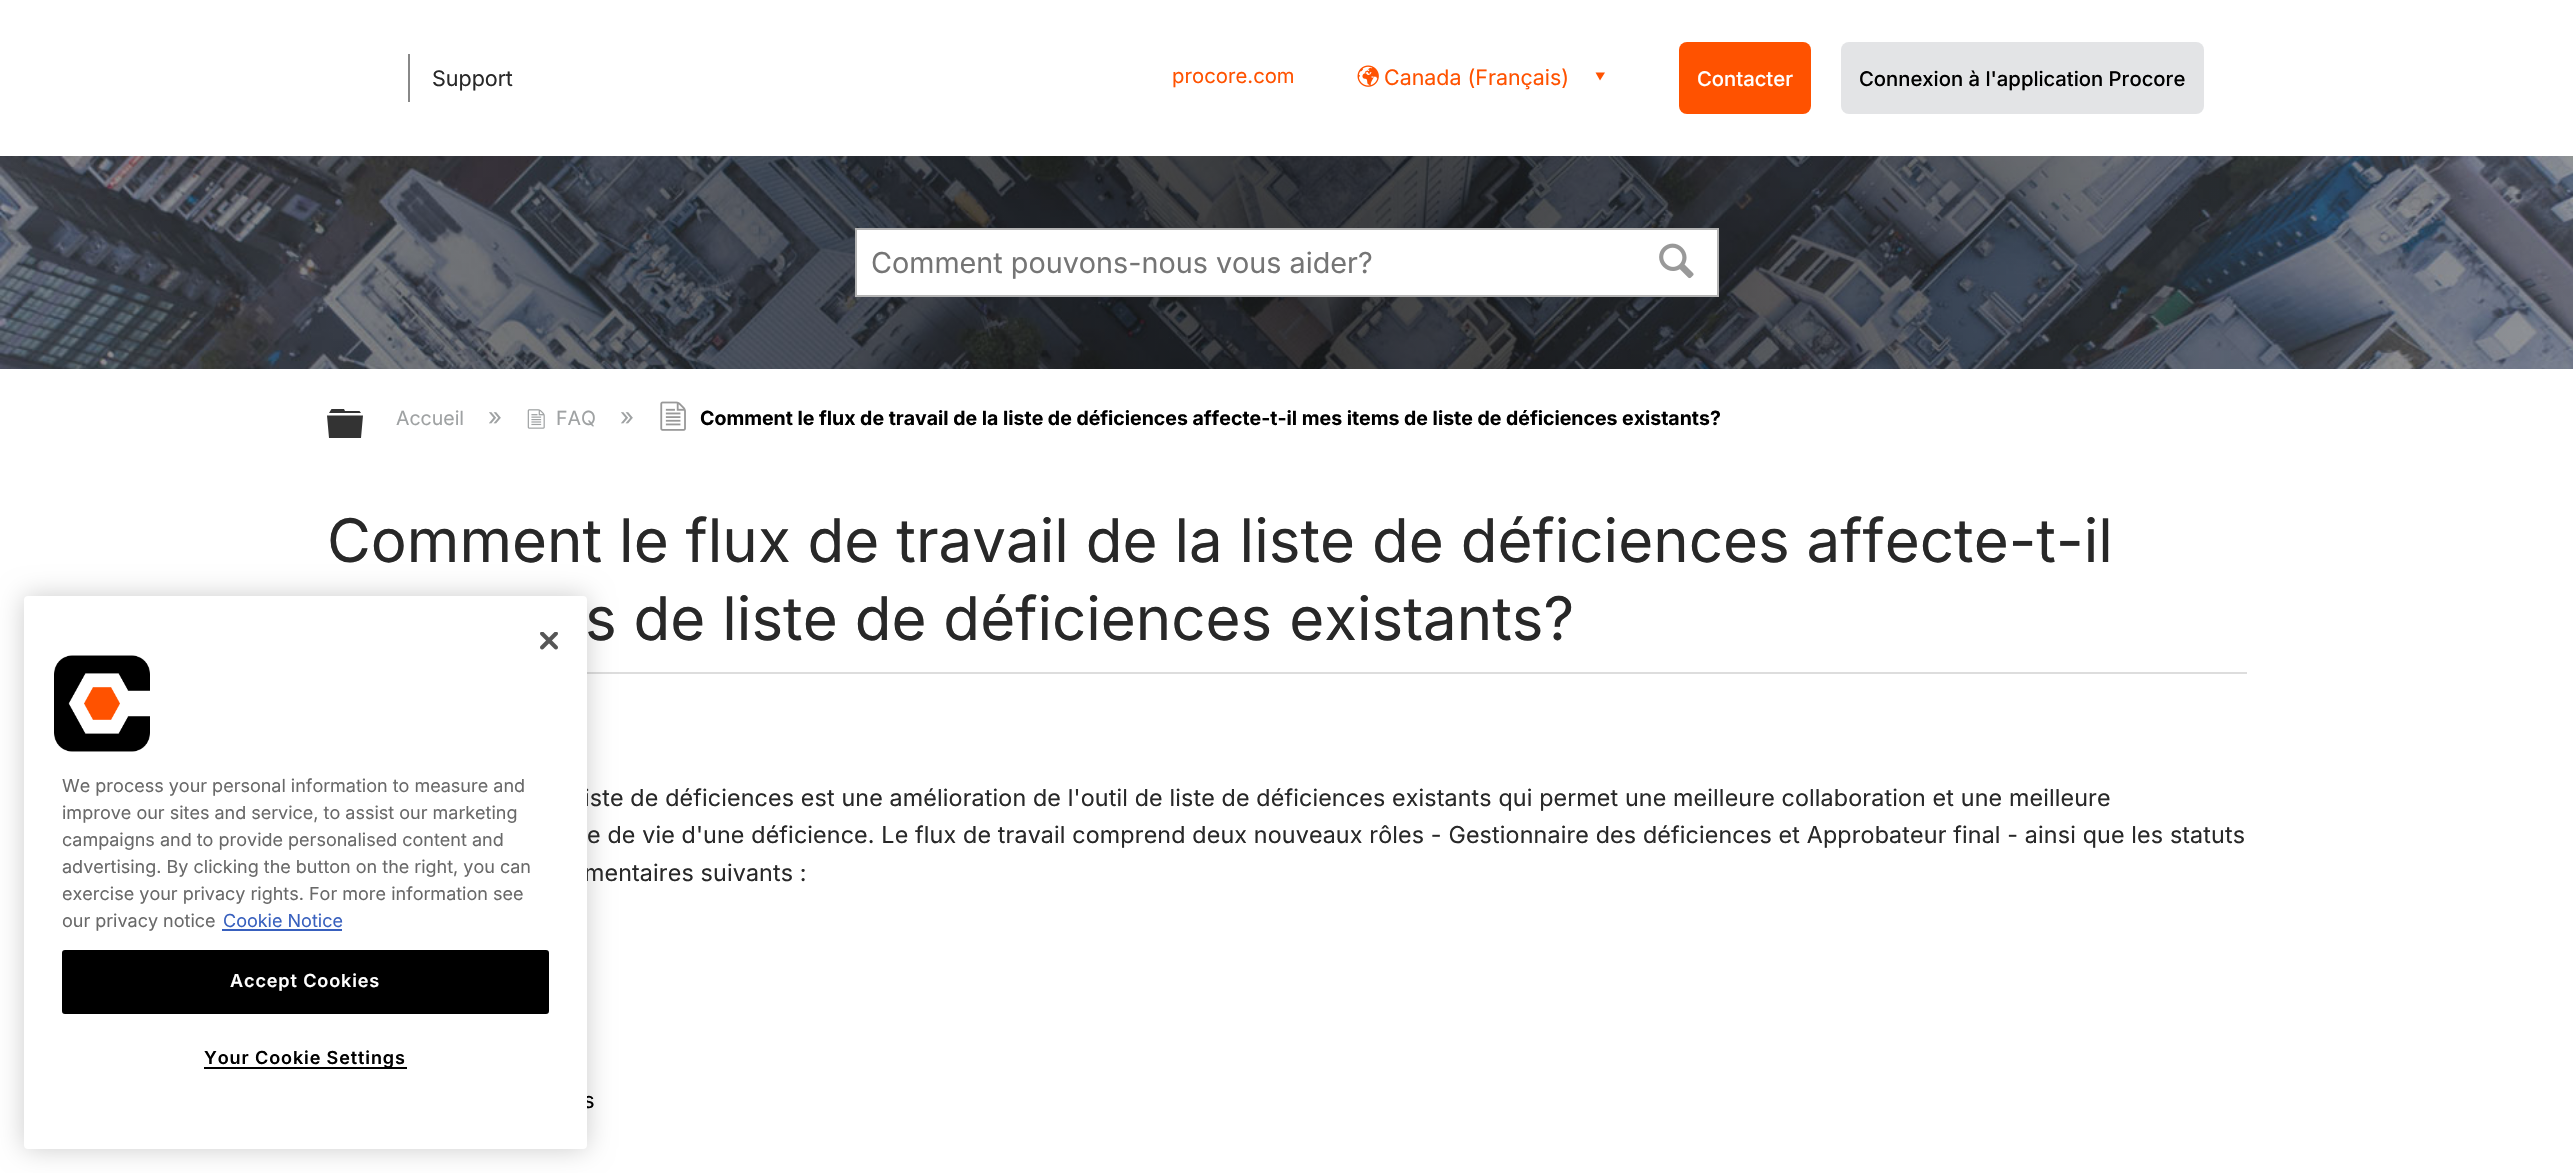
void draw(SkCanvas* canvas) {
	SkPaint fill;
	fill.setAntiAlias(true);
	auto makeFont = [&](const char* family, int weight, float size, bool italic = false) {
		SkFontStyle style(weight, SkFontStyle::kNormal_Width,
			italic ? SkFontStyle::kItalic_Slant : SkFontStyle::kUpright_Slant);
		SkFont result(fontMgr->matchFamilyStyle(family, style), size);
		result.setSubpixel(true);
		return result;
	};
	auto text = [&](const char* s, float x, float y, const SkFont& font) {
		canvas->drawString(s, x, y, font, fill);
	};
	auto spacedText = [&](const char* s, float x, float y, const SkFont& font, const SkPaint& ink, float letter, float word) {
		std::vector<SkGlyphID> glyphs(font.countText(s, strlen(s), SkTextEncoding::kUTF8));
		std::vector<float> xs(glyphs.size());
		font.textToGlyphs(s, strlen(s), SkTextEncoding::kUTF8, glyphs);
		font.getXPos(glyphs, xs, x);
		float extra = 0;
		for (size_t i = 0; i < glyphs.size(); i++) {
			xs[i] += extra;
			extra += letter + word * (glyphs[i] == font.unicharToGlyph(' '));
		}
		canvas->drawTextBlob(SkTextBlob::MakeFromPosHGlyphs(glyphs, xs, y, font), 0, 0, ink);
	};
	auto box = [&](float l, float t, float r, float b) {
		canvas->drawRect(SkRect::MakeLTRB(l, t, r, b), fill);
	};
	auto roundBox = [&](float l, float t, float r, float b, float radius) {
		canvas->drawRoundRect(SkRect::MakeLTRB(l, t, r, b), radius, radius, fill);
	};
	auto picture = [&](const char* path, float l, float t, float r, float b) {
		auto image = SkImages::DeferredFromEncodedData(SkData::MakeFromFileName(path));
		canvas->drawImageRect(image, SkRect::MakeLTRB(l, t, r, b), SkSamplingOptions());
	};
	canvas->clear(0xFFFFFFFF);
	fill.setColor(0xFFDDDDDD);
	box(587, 672, 2247, 674);
	fill.setColor(0x33000000);
	fill.setMaskFilter(SkMaskFilter::MakeBlur(kNormal_SkBlurStyle, 13.5f));
	canvas->drawRoundRect(SkRect::MakeLTRB(24, 596, 587, 1149), 4, 4, fill);
	fill.setMaskFilter(nullptr);
	fill.setColor(0xFF888888);
	box(408, 54, 410, 102);
	picture("image2.png", 1357, 65, 1379, 87);
	fill.setColor(0xFFFF5200);
	canvas->drawPath(SkPathBuilder().moveTo(1605, 72.5f).lineTo(1595.5f, 72.5f).lineTo(1600, 80.5f).close().detach(), fill);
	roundBox(1679, 42, 1811, 114, 8);
	fill.setColor(0xFFE3E4E6);
	roundBox(1841, 42, 2204, 114, 8);
	picture("image3.png", 0, 156, 2573, 369);
	fill.setColor(0xFFFFFFFF);
	canvas->drawRect(SkRect::MakeLTRB(856, 229, 1718, 296), fill);
	fill.setStyle(SkPaint::kStroke_Style);
	fill.setStrokeWidth(2);
	fill.setColor(0xFFB4B4B4);
	canvas->drawRect(SkRect::MakeLTRB(856, 229, 1718, 296), fill);
	picture("image4.png", 1659, 243, 1694, 279);
	fill.setStyle(SkPaint::kFill_Style);
	fill.setColor(0xFF333333);
	canvas->drawPath(SkPathBuilder().moveTo(327, 415.5f).lineTo(363, 415.5f).lineTo(361, 438).lineTo(329, 438).close().moveTo(359.5f, 411).lineTo(361, 413).lineTo(329, 413).lineTo(331.5f, 409).lineTo(344, 409).lineTo(345, 411).close().detach(), fill);
	picture("image5.png", 527, 409, 545, 429);
	picture("image6.png", 660, 401, 686, 431);
	auto font1 = makeFont("Inter", 400, 21.5f);
	fill.setColor(0xFF282828);
	text("Support", 432, 86, font1);
	auto font2 = makeFont("Inter", 400, 20.25f);
	fill.setColor(0xFFFF5200);
	text("procore.com", 1172, 83, font2);
	auto font3 = makeFont("Inter", 400, 21.4f);
	text("Canada (Français)", 1384, 85, font3);
	auto font4 = makeFont("Inter", 500, 20.25f);
	fill.setColor(0xFFFFFFFF);
	text("Contacter", 1697, 86, font4);
	fill.setColor(0xFF000000);
	text("Connexion à l'application Procore", 1859, 86, font4);
	auto font5 = makeFont("Inter", 400, 28.75f);
	fill.setColor(0xFF757575);
	text("Comment pouvons-nous vous aider?", 871, 273, font5);
	auto font6 = makeFont("Inter", 400, 19.5f);
	fill.setColor(0xFF9FA2A3);
	text("Accueil", 396, 425, font6);
	auto font7 = makeFont("Inter", 400, 24);
	text("»", 488, 425, font7);
	text("FAQ", 556, 425, font6);
	text("»", 620, 425, font7);
	auto font8 = makeFont("Inter", 700, 19.5f);
	fill.setColor(0xFF000000);
	text("Comment le flux de travail de la liste de déficiences affecte-t-il mes items de liste de déficiences existants?", 700, 425, font8);
	auto font9 = makeFont("Inter", 400, 60);
	fill.setColor(0xFF282828);
	spacedText("Comment le flux de travail de la liste de déficiences affecte-t-il", 327, 562, font9, fill, 0.03f, 0);
	spacedText("s de liste de déficiences existants?", 585, 640, font9, fill, 0.03f, 0);
	auto font10 = makeFont("Inter", 400, 23.25f);
	spacedText("iste de déficiences est une amélioration de l'outil de liste de déficiences existants qui permet une meilleure collaboration et une meilleure", 584, 806, font10, fill, 0.15f, 0);
	spacedText("e de vie d'une déficience. Le flux de travail comprend deux nouveaux rôles - Gestionnaire des déficiences et Approbateur final - ainsi que les statuts", 587, 843, font10, fill, 0.15f, 0);
	spacedText("mentaires suivants :", 584, 881, font10, fill, 0.15f, 0);
	auto font11 = makeFont("Inter", 400, 22);
	fill.setColor(0xFF000000);
	text("s", 583, 1108, font11);
	fill.setColor(0xFFFFFFFF);
	roundBox(24, 596, 587, 1149, 4);
	picture("image0.png", 540, 632, 558, 650);
	fill.setColor(0xFF000000);
	box(204, 1067, 407, 1069);
	auto font12 = makeFont("Inter", 600, 18);
	spacedText("Your Cookie Settings", 204, 1064, font12, fill, 0.9f, 0);
	canvas->drawRoundRect(SkRect::MakeLTRB(63, 951, 548, 1013), 2, 2, fill);
	fill.setStyle(SkPaint::kStroke_Style);
	canvas->drawRoundRect(SkRect::MakeLTRB(63, 951, 548, 1013), 2, 2, fill);
	fill.setStyle(SkPaint::kFill_Style);
	fill.setColor(0xFFFFFFFF);
	spacedText("Accept Cookies", 230, 987, font12, fill, 0.9f, 0);
	picture("image1.png", 54, 655, 150, 752);
	auto font13 = makeFont("Inter", 400, 18);
	fill.setColor(0xFF3860BE);
	text("Cookie Notice", 223, 927, font13);
	box(222, 929, 342, 931);
	fill.setColor(0xFF696969);
	text("our privacy notice", 62, 927, font13);
	text("exercise your privacy rights. For more information see", 62, 900, font13);
	text("advertising. By clicking the button on the right, you can", 62, 873, font13);
	text("campaigns and to provide personalised content and", 62, 846, font13);
	text("improve our sites and service, to assist our marketing", 62, 819, font13);
	text("We process your personal information to measure and", 62, 792, font13);
}
